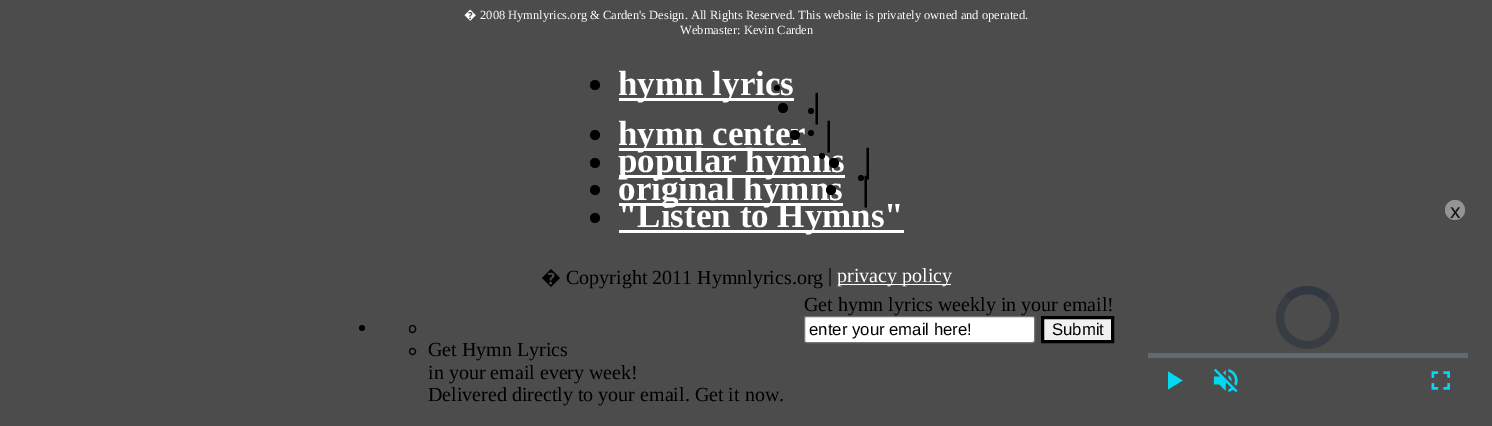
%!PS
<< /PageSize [1492 426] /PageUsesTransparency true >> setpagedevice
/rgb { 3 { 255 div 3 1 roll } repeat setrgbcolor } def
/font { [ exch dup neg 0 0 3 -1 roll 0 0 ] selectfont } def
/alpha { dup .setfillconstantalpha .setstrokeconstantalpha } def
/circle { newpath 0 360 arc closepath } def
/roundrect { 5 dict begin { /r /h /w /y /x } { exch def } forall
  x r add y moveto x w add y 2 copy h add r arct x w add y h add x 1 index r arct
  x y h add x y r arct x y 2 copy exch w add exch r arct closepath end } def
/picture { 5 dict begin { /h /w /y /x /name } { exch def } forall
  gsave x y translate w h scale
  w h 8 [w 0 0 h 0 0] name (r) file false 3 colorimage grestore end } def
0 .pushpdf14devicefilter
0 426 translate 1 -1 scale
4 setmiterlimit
76 76 76 rgb
0 0 1492 426 rectfill
0 0 0 rgb
595 85 5 circle fill
255 255 255 rgb
619 98 175 3 rectfill
0 0 0 rgb
811 111 3 circle fill
783 108 5 circle fill
595 135 5 circle fill
255 255 255 rgb
619 148 187 3 rectfill
0 0 0 rgb
811 133 3 circle fill
595 163 5 circle fill
255 255 255 rgb
619 175 226 3 rectfill
0 0 0 rgb
595 190 5 circle fill
255 255 255 rgb
619 203 224 3 rectfill
0 0 0 rgb
861 178 3 circle fill
595 218 5 circle fill
255 255 255 rgb
619 230 285 3 rectfill
838 284 113 1 rectfill
804.5 316.5 230 26 2 roundrect gsave fill grestore
118 118 118 rgb
stroke
240 240 240 rgb
1042.5 317.5 moveto 1112.5 317.5 lineto 1112.5 341.5 lineto 1042.5 341.5 lineto closepath gsave fill grestore
0 0 0 rgb
3 setlinewidth
stroke
362 328 3 circle fill
1 setlinewidth
409.5 325.5 6 7 3 roundrect stroke
412.5 351.5 3 circle stroke
148 148 148 rgb
1455 210 10 circle fill
56 61 68 rgb
8 setlinewidth
1307.5 317.5 27.5 circle stroke
0.7 alpha
48 55 65 rgb
7.5 setlinewidth
1288 298 moveto 1298.5 287.5 1316.5 287.5 1327 298 curveto stroke
1288 298 moveto 1298.5 287.5 1316.5 287.5 1327 298 curveto stroke
1 alpha
96 105 118 rgb
1148 353 320 5 rectfill
3 216 243 rgb
1168 371.5 moveto 1168 389.5 lineto 1182.5 380.5 lineto closepath fill
(img/1.rgb) 1213 368 25 25 picture
(img/2.rgb) 1431 371 19 19 picture
/NotoSans-Regular 12.5 font
255 255 255 rgb
464 19 moveto (�) show
/LiberationSerif-Regular 12.5 font
480 19 moveto (2008 Hymnlyrics.org & Carden's Design. All Rights Reserved. This website is privately owned and operated.) show
680 34 moveto (Webmaster: Kevin Carden) show
/LiberationSerif-Bold 35 font
618 95 moveto (hymn lyrics) show
0 0 0 rgb
777 88 3 circle fill
813 117 moveto (|) show
255 255 255 rgb
618 145 moveto (hymn center) show
0 0 0 rgb
795 135 5 circle fill
825 145 moveto (|) show
255 255 255 rgb
618 172 moveto (popular hymns) show
0 0 0 rgb
834 163 5 circle fill
864 172 moveto (|) show
822 156 3 circle fill
255 255 255 rgb
618 200 moveto (original hymns) show
0 0 0 rgb
831 190 5 circle fill
862 200 moveto (|) show
255 255 255 rgb
618 227 moveto ("Listen to Hymns") show
/NotoSans-Regular 20 font
0 0 0 rgb
541 284 moveto (�) show
/LiberationSerif-Regular 20 font
566 284 moveto (Copyright 2011 Hymnlyrics.org) show
828 282 moveto (|) show
255 255 255 rgb
837 282 moveto (privacy policy) show
0 0 0 rgb
804 311 moveto (Get hymn lyrics weekly in your email!) show
/LiberationSans-Regular 16.75 font
809 335 moveto (enter your email here!) show
1052 335 moveto (Submit) show
/LiberationSerif-Regular 20 font
[
  [(Get Hymn Lyrics) 428 356]
  [(in your email every week!) 428 379]
  [(Delivered directly to your email. Get it now.) 428 401]
] { aload pop moveto show } forall
/NotoSans-Regular 20 font
15 15 15 rgb
1450 218 moveto (x) show
.poppdf14devicefilter showpage
